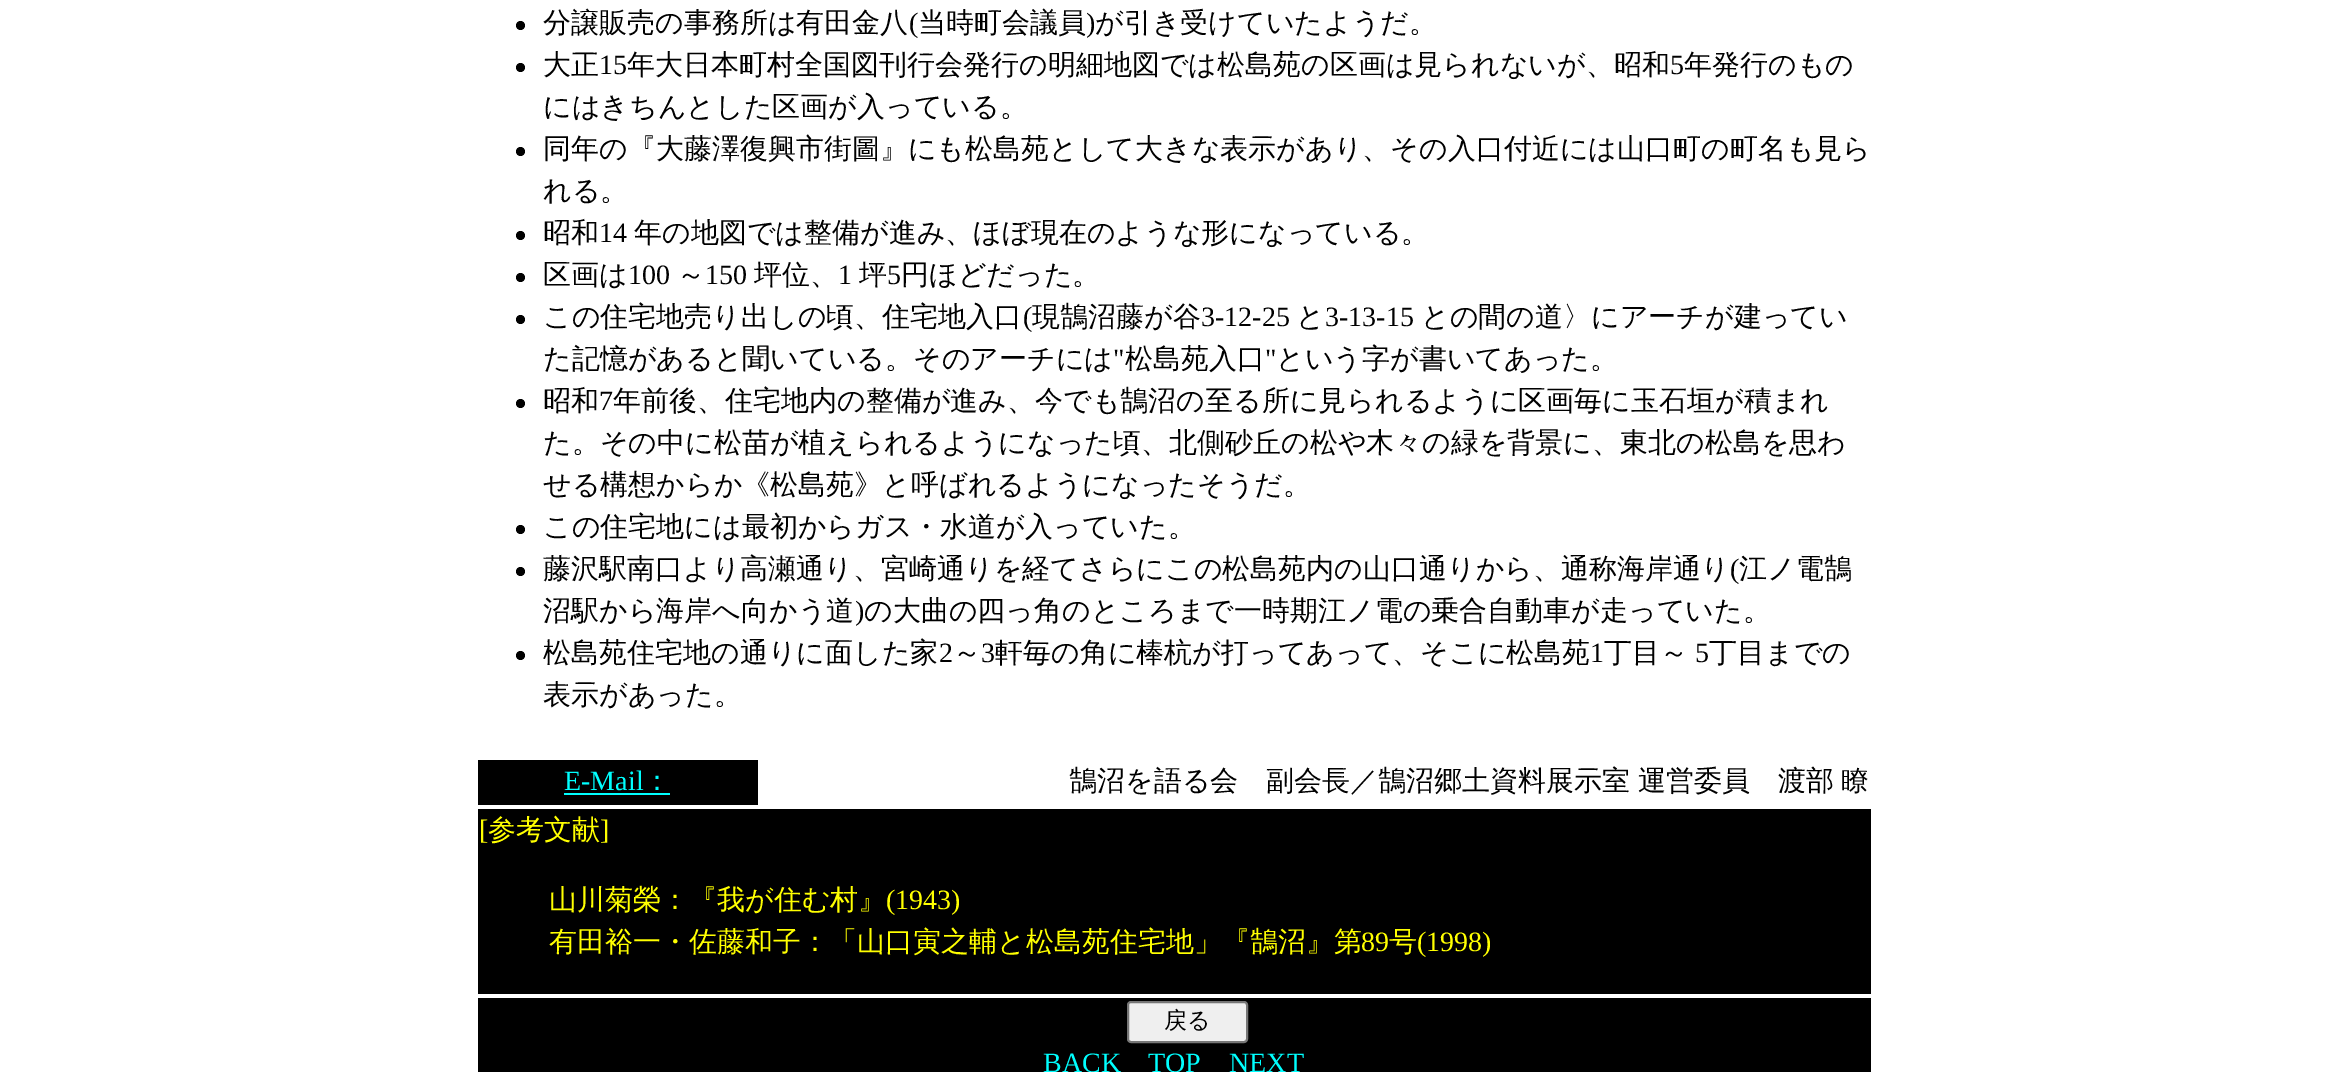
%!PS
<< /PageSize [2346 1072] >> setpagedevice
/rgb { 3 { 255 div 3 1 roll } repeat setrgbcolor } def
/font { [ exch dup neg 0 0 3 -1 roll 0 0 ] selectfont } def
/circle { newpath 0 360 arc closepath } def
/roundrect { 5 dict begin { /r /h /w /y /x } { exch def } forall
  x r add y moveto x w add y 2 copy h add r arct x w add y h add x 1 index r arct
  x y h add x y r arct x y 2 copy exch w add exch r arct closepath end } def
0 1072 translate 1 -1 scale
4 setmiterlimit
255 255 255 rgb
0 0 2346 1072 rectfill
0 0 0 rgb
520.5 25.5 4.5 circle fill
520.5 67.5 4.5 circle fill
520.5 151.5 4.5 circle fill
520.5 235.5 4.5 circle fill
520.5 277.5 4.5 circle fill
520.5 319.5 4.5 circle fill
520.5 403.5 4.5 circle fill
520.5 529.5 4.5 circle fill
520.5 571.5 4.5 circle fill
520.5 655.5 4.5 circle fill
[
  [478 760 280 45 0 0 0]
  [564 793 106 2 0 255 255]
  [478 809 1393 185 0 0 0]
  [478 998 1393 74 0 0 0]
] { aload pop rgb rectfill } forall
239 239 239 rgb
1128 1002 119 40 3 roundrect gsave fill grestore
118 118 118 rgb
2 setlinewidth
stroke
/WenQuanYiZenHei-Medium 28 font
0 0 0 rgb
543 32 moveto (分譲販売の事務所は有田金八) show
/LiberationSerif-Regular 28 font
909 32 moveto (\() show
/WenQuanYiZenHei-Medium 28 font
918 32 moveto (当時町会議員) show
/LiberationSerif-Regular 28 font
1086 32 moveto (\)) show
/WenQuanYiZenHei-Medium 28 font
1095 32 moveto (が引き受けていたようだ。) show
543 74 moveto (大正) show
/LiberationSerif-Regular 28 font
599 74 moveto (15) show
/WenQuanYiZenHei-Medium 28 font
627 74 moveto (年大日本町村全国図刊行会発行の明細地図では松島苑の区画は見られないが、昭和) show
/LiberationSerif-Regular 28 font
1670 74 moveto (5) show
/WenQuanYiZenHei-Medium 28 font
[
  [(年発行のもの) 1684 74]
  [(にはきちんとした区画が入っている。) 543 116]
  [(同年の『大藤澤復興市街圖』にも松島苑として大きな表示があり、その入口付近には山口町の町名も見ら) 543 158]
  [(れる。) 543 200]
  [(昭和) 543 242]
] { aload pop moveto show } forall
/LiberationSerif-Regular 28 font
599 242 moveto (14) show
/WenQuanYiZenHei-Medium 28 font
634 242 moveto (年の地図では整備が進み、ほぼ現在のような形になっている。) show
543 284 moveto (区画は) show
/LiberationSerif-Regular 28 font
628 284 moveto (100) show
/WenQuanYiZenHei-Medium 28 font
677 284 moveto (～) show
/LiberationSerif-Regular 28 font
705 284 moveto (150) show
/WenQuanYiZenHei-Medium 28 font
754 284 moveto (坪位、) show
/LiberationSerif-Regular 28 font
838 284 moveto (1) show
/WenQuanYiZenHei-Medium 28 font
859 284 moveto (坪) show
/LiberationSerif-Regular 28 font
887 284 moveto (5) show
/WenQuanYiZenHei-Medium 28 font
901 284 moveto (円ほどだった。) show
543 326 moveto (この住宅地売り出しの頃、住宅地入口) show
/LiberationSerif-Regular 28 font
1023 326 moveto (\() show
/WenQuanYiZenHei-Medium 28 font
1032 326 moveto (現鵠沼藤が谷) show
/LiberationSerif-Regular 28 font
1201 326 moveto (3-12-25) show
/WenQuanYiZenHei-Medium 28 font
1296 326 moveto (と) show
/LiberationSerif-Regular 28 font
1325 326 moveto (3-13-15) show
/WenQuanYiZenHei-Medium 28 font
1421 326 moveto (との間の道〉にアーチが建ってい) show
543 368 moveto (た記憶があると聞いている。そのアーチには) show
/LiberationSerif-Regular 28 font
1113 368 moveto (") show
/WenQuanYiZenHei-Medium 28 font
1125 368 moveto (松島苑入口) show
/LiberationSerif-Regular 28 font
1265 368 moveto (") show
/WenQuanYiZenHei-Medium 28 font
1276 368 moveto (という字が書いてあった。) show
543 410 moveto (昭和) show
/LiberationSerif-Regular 28 font
599 410 moveto (7) show
/WenQuanYiZenHei-Medium 28 font
[
  [(年前後、住宅地内の整備が進み、今でも鵠沼の至る所に見られるように区画毎に玉石垣が積まれ) 613 410]
  [(た。その中に松苗が植えられるようになった頃、北側砂丘の松や木々の緑を背景に、東北の松島を思わ) 543 452]
  [(せる構想からか《松島苑》と呼ばれるようになったそうだ。) 543 494]
  [(この住宅地には最初からガス・水道が入っていた。) 543 536]
  [(藤沢駅南口より高瀬通り、宮崎通りを経てさらにこの松島苑内の山口通りから、通称海岸通り) 543 578]
] { aload pop moveto show } forall
/LiberationSerif-Regular 28 font
1730 578 moveto (\() show
/WenQuanYiZenHei-Medium 28 font
1739 578 moveto (江ノ電鵠) show
543 620 moveto (沼駅から海岸へ向かう道) show
/LiberationSerif-Regular 28 font
855 620 moveto (\)) show
/WenQuanYiZenHei-Medium 28 font
864 620 moveto (の大曲の四っ角のところまで一時期江ノ電の乗合自動車が走っていた。) show
543 662 moveto (松島苑住宅地の通りに面した家) show
/LiberationSerif-Regular 28 font
939 662 moveto (2) show
/WenQuanYiZenHei-Medium 28 font
953 662 moveto (～) show
/LiberationSerif-Regular 28 font
981 662 moveto (3) show
/WenQuanYiZenHei-Medium 28 font
995 662 moveto (軒毎の角に棒杭が打ってあって、そこに松島苑) show
/LiberationSerif-Regular 28 font
1590 662 moveto (1) show
/WenQuanYiZenHei-Medium 28 font
1604 662 moveto (丁目～) show
/LiberationSerif-Regular 28 font
1695 662 moveto (5) show
/WenQuanYiZenHei-Medium 28 font
1709 662 moveto (丁目までの) show
543 704 moveto (表示があった。) show
/LiberationSerif-Regular 28 font
0 255 255 rgb
564 790 moveto (E-Mail) show
/WenQuanYiZenHei-Medium 28 font
643 790 moveto (：) show
0 0 0 rgb
1069 790 moveto -1 0 32 (鵠沼を語る会　副会長／鵠沼郷土資料展示室 運営委員　渡部 瞭) widthshow
/LiberationSerif-Regular 28 font
255 255 0 rgb
479 839 moveto ([) show
/WenQuanYiZenHei-Medium 28 font
488 839 moveto (参考文献) show
/LiberationSerif-Regular 28 font
600 839 moveto (]) show
/WenQuanYiZenHei-Medium 28 font
549 909 moveto (山川菊榮：『我が住む村』) show
/LiberationSerif-Regular 28 font
886 909 moveto (\(1943\)) show
/WenQuanYiZenHei-Medium 28 font
549 951 moveto (有田裕一・佐藤和子：「山口寅之輔と松島苑住宅地」『鵠沼』第) show
/LiberationSerif-Regular 28 font
1361 951 moveto (89) show
/WenQuanYiZenHei-Medium 28 font
1389 951 moveto (号) show
/LiberationSerif-Regular 28 font
1417 951 moveto (\(1998\)) show
/WenQuanYiZenHei-Medium 23 font
0 0 0 rgb
1164 1028 moveto (戻る) show
/LiberationSerif-Regular 28 font
0 255 255 rgb
[
  [(BACK) 1043 1072]
  [(TOP) 1148 1072]
  [(NEXT) 1229 1072]
] { aload pop moveto show } forall
showpage
